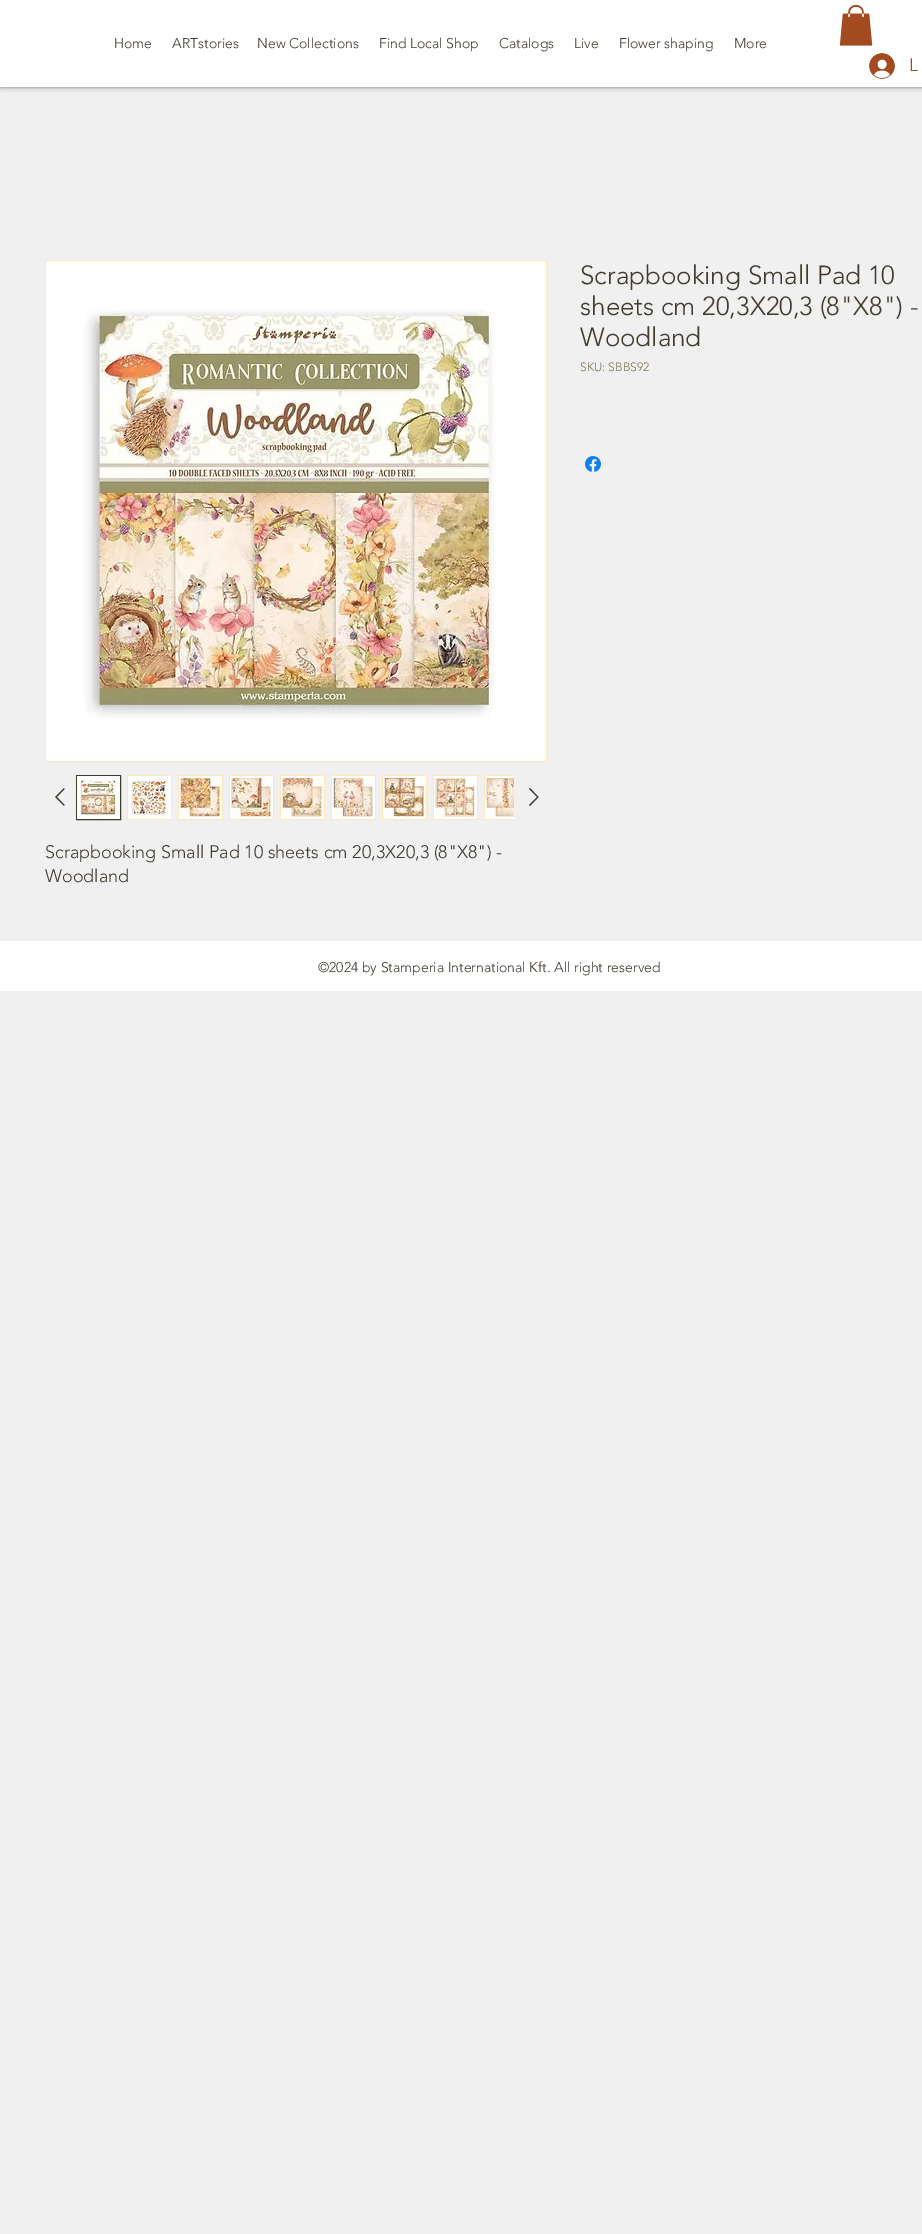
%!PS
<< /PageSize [922 2234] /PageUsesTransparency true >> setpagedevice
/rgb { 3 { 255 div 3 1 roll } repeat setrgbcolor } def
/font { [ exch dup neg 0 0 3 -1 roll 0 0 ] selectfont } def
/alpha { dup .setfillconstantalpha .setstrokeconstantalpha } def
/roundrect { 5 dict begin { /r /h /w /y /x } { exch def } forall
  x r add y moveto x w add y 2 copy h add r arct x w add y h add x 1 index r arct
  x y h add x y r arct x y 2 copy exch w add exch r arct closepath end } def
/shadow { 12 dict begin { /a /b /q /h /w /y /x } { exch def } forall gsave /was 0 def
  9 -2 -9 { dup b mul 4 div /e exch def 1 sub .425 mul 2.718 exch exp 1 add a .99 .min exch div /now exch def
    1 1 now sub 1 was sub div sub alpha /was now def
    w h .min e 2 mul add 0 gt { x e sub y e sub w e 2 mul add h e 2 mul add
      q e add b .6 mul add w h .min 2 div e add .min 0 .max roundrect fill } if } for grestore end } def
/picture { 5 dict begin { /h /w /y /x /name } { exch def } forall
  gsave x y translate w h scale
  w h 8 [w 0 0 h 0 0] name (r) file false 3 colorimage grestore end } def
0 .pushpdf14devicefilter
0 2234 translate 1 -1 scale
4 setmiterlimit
240 240 240 rgb
0 0 922 2234 rectfill
0 0 0 rgb
0 0 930 87 0 2.5 0.5 shadow
255 255 255 rgb
0 0 922 87 rectfill
(img/1.rgb) 839 5 34 41 picture
(img/2.rgb) 869 53 26 26 picture
(img/3.rgb) 585 456 16 16 picture
255 231 186 rgb
45.5 260.5 501 501 rectstroke
(img/4.rgb) 46 261 500 500 picture
64 58 47 rgb
64 788 moveto 64.5 789 lineto 57 797 lineto 64.5 805 lineto 64 806 lineto 55 797 lineto closepath eofill
76.5 775.5 44 44 rectstroke
(img/5.rgb) 77 776 43 43 picture
255 231 186 rgb
127 775 45 45 rectfill
(img/6.rgb) 128 776 43 43 picture
178 775 45 45 rectfill
(img/7.rgb) 179 776 43 43 picture
229 775 45 45 rectfill
(img/8.rgb) 230 776 43 43 picture
280 775 45 45 rectfill
(img/9.rgb) 281 776 43 43 picture
331 775 45 45 rectfill
(img/10.rgb) 332 776 43 43 picture
382 775 45 45 rectfill
(img/11.rgb) 383 776 43 43 picture
433 775 45 45 rectfill
(img/12.rgb) 434 776 43 43 picture
484 775 30 45 rectfill
(img/13.rgb) 485 776 29 43 picture
64 58 47 rgb
530 788 moveto 538.5 797 lineto 530 806 lineto 529 805 lineto 537 797 lineto 529 789 lineto closepath eofill
255 255 255 rgb
0 941 922 50 rectfill
/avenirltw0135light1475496-Light 14 font
64 58 47 rgb
[
  [(Home) 114 48]
  [(ARTstories) 172 48]
  [(New Collections) 257 48]
  [(Find Local Shop) 379 48]
  [(Catalogs) 499 48]
  [(Live) 574 48]
  [(Flower shaping) 619 48]
  [(More) 734 48]
] { aload pop moveto show } forall
/avenirltw0135light1475496-Light 18 font
163 74 33 rgb
909 71 moveto (L) show
/avenirltw0135light1475496-Light 26 font
64 58 47 rgb
[
  [(Scrapbooking Small Pad 10) 580 284]
  [(sheets cm 20,3X20,3 \(8"X8"\) -) 580 315]
  [(Woodland) 580 346]
] { aload pop moveto show } forall
/avenirltw0135light1475496-Light 12 font
128 116 93 rgb
580 371 moveto (SKU: SBBS92) show
/avenirltw0135light1475496-Light 18 font
64 58 47 rgb
45 858 moveto (Scrapbooking Small Pad 10 sheets cm 20,3X20,3 \(8"X8"\) -) show
45 882 moveto (Woodland) show
/avenirltw0135light1475496-Light 14 font
318 972 moveto (©2024 by Stamperia International Kft. All right reserved) show
.poppdf14devicefilter showpage
